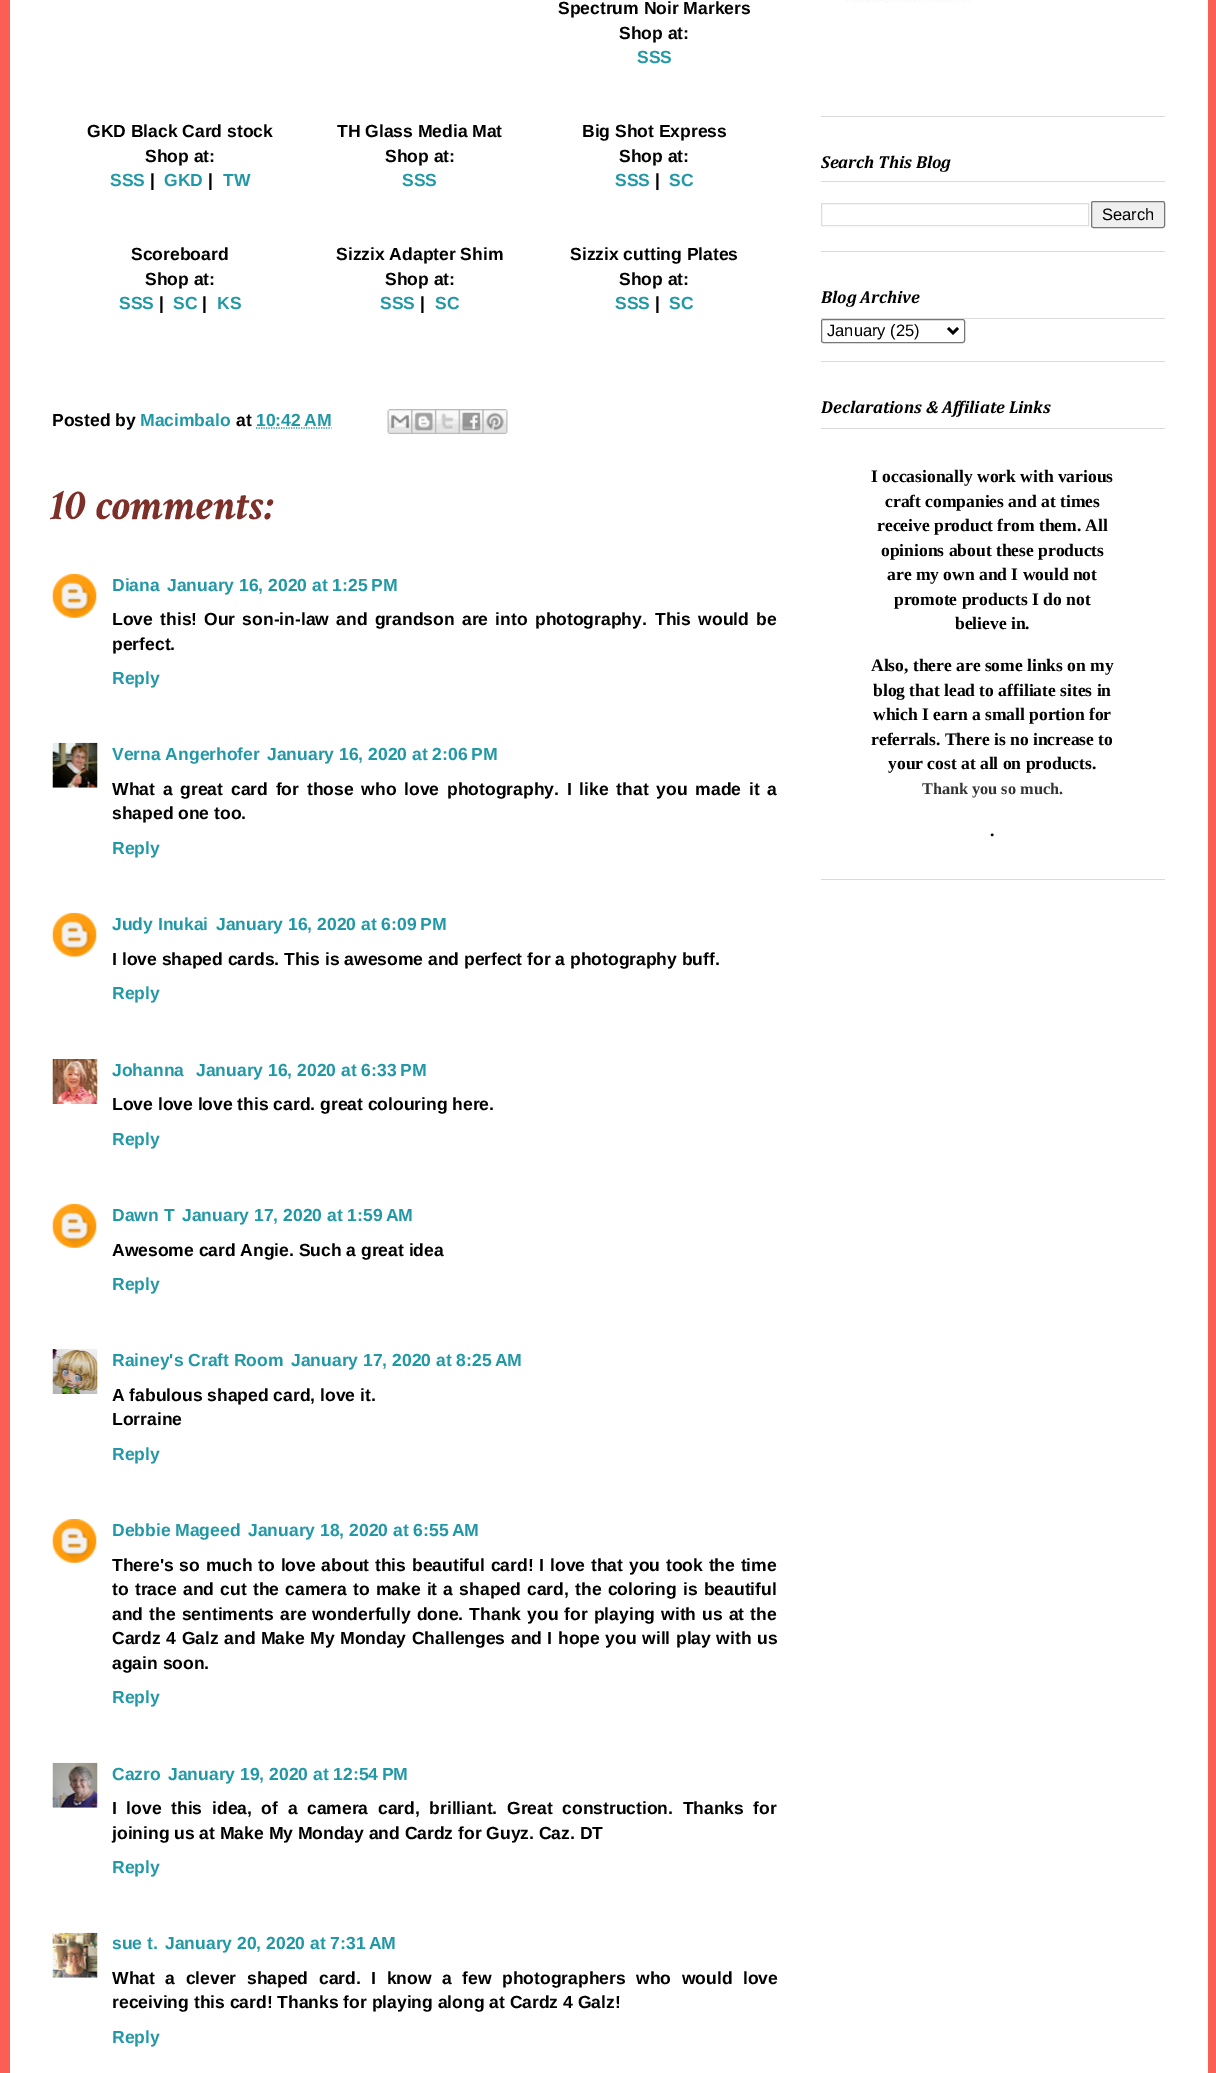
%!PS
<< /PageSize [1216 2073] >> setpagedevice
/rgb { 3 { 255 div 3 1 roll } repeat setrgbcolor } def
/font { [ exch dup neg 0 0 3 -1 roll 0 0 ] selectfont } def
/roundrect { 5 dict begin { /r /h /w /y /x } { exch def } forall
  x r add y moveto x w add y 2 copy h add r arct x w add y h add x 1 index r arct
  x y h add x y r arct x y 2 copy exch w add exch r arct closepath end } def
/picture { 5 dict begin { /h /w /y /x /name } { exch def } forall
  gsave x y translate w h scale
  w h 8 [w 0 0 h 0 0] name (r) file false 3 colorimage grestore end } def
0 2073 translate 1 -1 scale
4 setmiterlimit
251 94 83 rgb
0 0 1216 2073 rectfill
255 255 255 rgb
10 0 1198 2073 rectfill
33 152 166 rgb
1.2 setlinewidth
[1.25 1.25] 0 setdash
256 428 moveto 331.5 428 lineto stroke
(img/1.rgb) 387 409 25 25 picture
(img/2.rgb) 411 409 24 25 picture
(img/3.rgb) 435 409 24 25 picture
(img/4.rgb) 458 409 25 25 picture
(img/5.rgb) 482 409 26 25 picture
(img/6.rgb) 52 574 45 44 picture
(img/7.rgb) 52 742 46 46 picture
(img/8.rgb) 52 912 45 45 picture
(img/9.rgb) 52 1059 46 45 picture
(img/6.rgb) 52 1204 45 44 picture
(img/10.rgb) 52 1349 46 45 picture
(img/11.rgb) 52 1519 45 44 picture
(img/12.rgb) 52 1762 46 46 picture
(img/13.rgb) 52 1932 46 46 picture
219 219 219 rgb
821 116 344 1 rectfill
(img/14.rgb) 846 0 125 3 picture
821 251 344 1 rectfill
821 181 344 1 rectfill
221 221 221 rgb
1 setlinewidth
[] 0 setdash
821.5 203.5 267 22 rectstroke
239 239 239 rgb
1091.5 201.5 73 26 2 roundrect gsave fill grestore
118 118 118 rgb
stroke
219 219 219 rgb
821 361 344 1 rectfill
821 318 344 1 rectfill
118 118 118 rgb
821.5 319.5 143 23 2 roundrect stroke
0 0 0 rgb
2.5 setlinewidth
948 328 moveto 953 333 lineto 958 328 lineto stroke
219 219 219 rgb
821 879 344 1 rectfill
821 428 344 1 rectfill
/LiberationSans-Bold 17.5 font
0 0 0 rgb
558 14 moveto (Spectrum Noir Markers) show
619 39 moveto (Shop at:) show
33 152 166 rgb
637 63 moveto (SSS) show
0 0 0 rgb
87 137 moveto (GKD Black Card stock) show
145 162 moveto (Shop at:) show
33 152 166 rgb
110 186 moveto (SSS) show
0 0 0 rgb
150 186 moveto (|) show
33 152 166 rgb
164 186 moveto (GKD) show
0 0 0 rgb
208 186 moveto (|) show
33 152 166 rgb
223 186 moveto (TW) show
0 0 0 rgb
337 137 moveto (TH Glass Media Mat) show
385 162 moveto (Shop at:) show
33 152 166 rgb
402 186 moveto (SSS) show
0 0 0 rgb
582 137 moveto (Big Shot Express) show
619 162 moveto (Shop at:) show
33 152 166 rgb
615 186 moveto (SSS) show
0 0 0 rgb
655 186 moveto (|) show
33 152 166 rgb
669 186 moveto (SC) show
0 0 0 rgb
131 260 moveto (Scoreboard) show
145 285 moveto (Shop at:) show
33 152 166 rgb
119 309 moveto (SSS) show
0 0 0 rgb
159 309 moveto (|) show
33 152 166 rgb
173 309 moveto (SC) show
0 0 0 rgb
202 309 moveto (|) show
33 152 166 rgb
217 309 moveto (KS) show
0 0 0 rgb
336 260 moveto (Sizzix Adapter Shim) show
385 285 moveto (Shop at:) show
33 152 166 rgb
380 309 moveto (SSS) show
0 0 0 rgb
420 309 moveto (|) show
33 152 166 rgb
435 309 moveto (SC) show
0 0 0 rgb
570 260 moveto (Sizzix cutting Plates) show
619 285 moveto (Shop at:) show
33 152 166 rgb
615 309 moveto (SSS) show
0 0 0 rgb
655 309 moveto (|) show
33 152 166 rgb
669 309 moveto (SC) show
0 0 0 rgb
52 426 moveto (Posted by) show
33 152 166 rgb
140 426 moveto (Macimbalo) show
0 0 0 rgb
236 426 moveto (at) show
33 152 166 rgb
256 426 moveto (10:42 AM) show
/CrimsonText-BoldItalic 45 font
125 47 41 rgb
52 519 moveto (10 comments:) show
/LiberationSans-Bold 17.5 font
33 152 166 rgb
112 591 moveto (Diana) show
167 591 moveto (January 16, 2020 at 1:25 PM) show
0 0 0 rgb
112 625 moveto 2.5 0 32 (Love this!) widthshow
204 625 moveto 2.5 0 32 (Our son-in-law and grandson are into photography.) widthshow
655 625 moveto 2.5 0 32 (This would be) widthshow
112 650 moveto (perfect.) show
33 152 166 rgb
[
  [(Reply) 112 684]
  [(Verna Angerhofer) 112 760]
  [(January 16, 2020 at 2:06 PM) 267 760]
] { aload pop moveto show } forall
0 0 0 rgb
112 795 moveto 3 0 32 (What a great card for those who love photography. I like that you made it a) widthshow
112 819 moveto (shaped one too.) show
33 152 166 rgb
[
  [(Reply) 112 854]
  [(Judy Inukai) 112 930]
  [(January 16, 2020 at 6:09 PM) 216 930]
] { aload pop moveto show } forall
0 0 0 rgb
112 965 moveto (I love shaped cards. This is awesome and perfect for a photography buff.) show
33 152 166 rgb
[
  [(Reply) 112 999]
  [(Johanna) 112 1076]
  [(January 16, 2020 at 6:33 PM) 196 1076]
] { aload pop moveto show } forall
0 0 0 rgb
112 1110 moveto (Love love love this card. great colouring here.) show
33 152 166 rgb
[
  [(Reply) 112 1145]
  [(Dawn T) 112 1221]
  [(January 17, 2020 at 1:59 AM) 182 1221]
] { aload pop moveto show } forall
0 0 0 rgb
112 1256 moveto (Awesome card Angie. Such a great idea) show
33 152 166 rgb
[
  [(Reply) 112 1290]
  [(Rainey's Craft Room) 112 1366]
  [(January 17, 2020 at 8:25 AM) 291 1366]
] { aload pop moveto show } forall
0 0 0 rgb
112 1401 moveto (A fabulous shaped card, love it.) show
112 1425 moveto (Lorraine) show
33 152 166 rgb
[
  [(Reply) 112 1460]
  [(Debbie Mageed) 112 1536]
  [(January 18, 2020 at 6:55 AM) 248 1536]
] { aload pop moveto show } forall
0 0 0 rgb
112 1571 moveto 1 0 32 (There's so much to love about this beautiful card! I love that you took the time) widthshow
112 1595 moveto 1.4 0 32 (to trace and cut the camera to make it a shaped card, the coloring is beautiful) widthshow
112 1620 moveto 1.25 0 32 (and the sentiments are wonderfully done. Thank you for playing with us at the) widthshow
112 1644 moveto 0.75 0 32 (Cardz 4 Galz and Make My Monday Challenges and I hope you will play with us) widthshow
112 1669 moveto (again soon.) show
33 152 166 rgb
[
  [(Reply) 112 1703]
  [(Cazro) 112 1780]
  [(January 19, 2020 at 12:54 PM) 168 1780]
] { aload pop moveto show } forall
0 0 0 rgb
112 1814 moveto 4.75 0 32 (I love this) widthshow
212 1814 moveto 4.75 0 32 (idea, of a camera card, brilliant. Great construction. Thanks for) widthshow
112 1839 moveto (joining us at Make My Monday and Cardz for Guyz. Caz. DT) show
33 152 166 rgb
[
  [(Reply) 112 1873]
  [(sue t.) 112 1949]
  [(January 20, 2020 at 7:31 AM) 165 1949]
] { aload pop moveto show } forall
0 0 0 rgb
112 1984 moveto 5.75 0 32 (What a clever shaped card. I know a few photographers who would love) widthshow
112 2008 moveto (receiving this card! Thanks for playing along at Cardz 4 Galz!) show
33 152 166 rgb
112 2043 moveto (Reply) show
/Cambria-BoldItalic 17.5 font
0 0 0 rgb
821 168 moveto (Search This Blog) show
/LiberationSans-Regular 16.5 font
1102 220 moveto (Search) show
/Cambria-BoldItalic 17.5 font
821 303 moveto (Blog Archive) show
/LiberationSans-Regular 16.5 font
827 336 moveto (January \(25\)) show
/Cambria-BoldItalic 17.5 font
821 413 moveto (Declarations & Affiliate Links) show
/LiberationSerif-Bold 17.5 font
[
  [(I occasionally work with various) 871 482]
  [(craft companies and at times) 885 507]
  [(receive product from them. All) 877 531]
  [(opinions about these products) 881 556]
  [(are my own and I would not) 887 580]
  [(promote products I do not) 894 605]
  [(believe in.) 955 629]
  [(Also, there are some links on my) 871 671]
  [(blog that lead to affiliate sites in) 873 696]
  [(which I earn a small portion for) 873 720]
  [(referrals. There is no increase to) 871 745]
  [(your cost at all on products.) 888 769]
] { aload pop moveto show } forall
/LiberationSerif-Bold 16.25 font
51 51 51 rgb
922 794 moveto (Thank you so much.) show
/LiberationSerif-Bold 17.5 font
0 0 0 rgb
990 836 moveto (.) show
showpage
